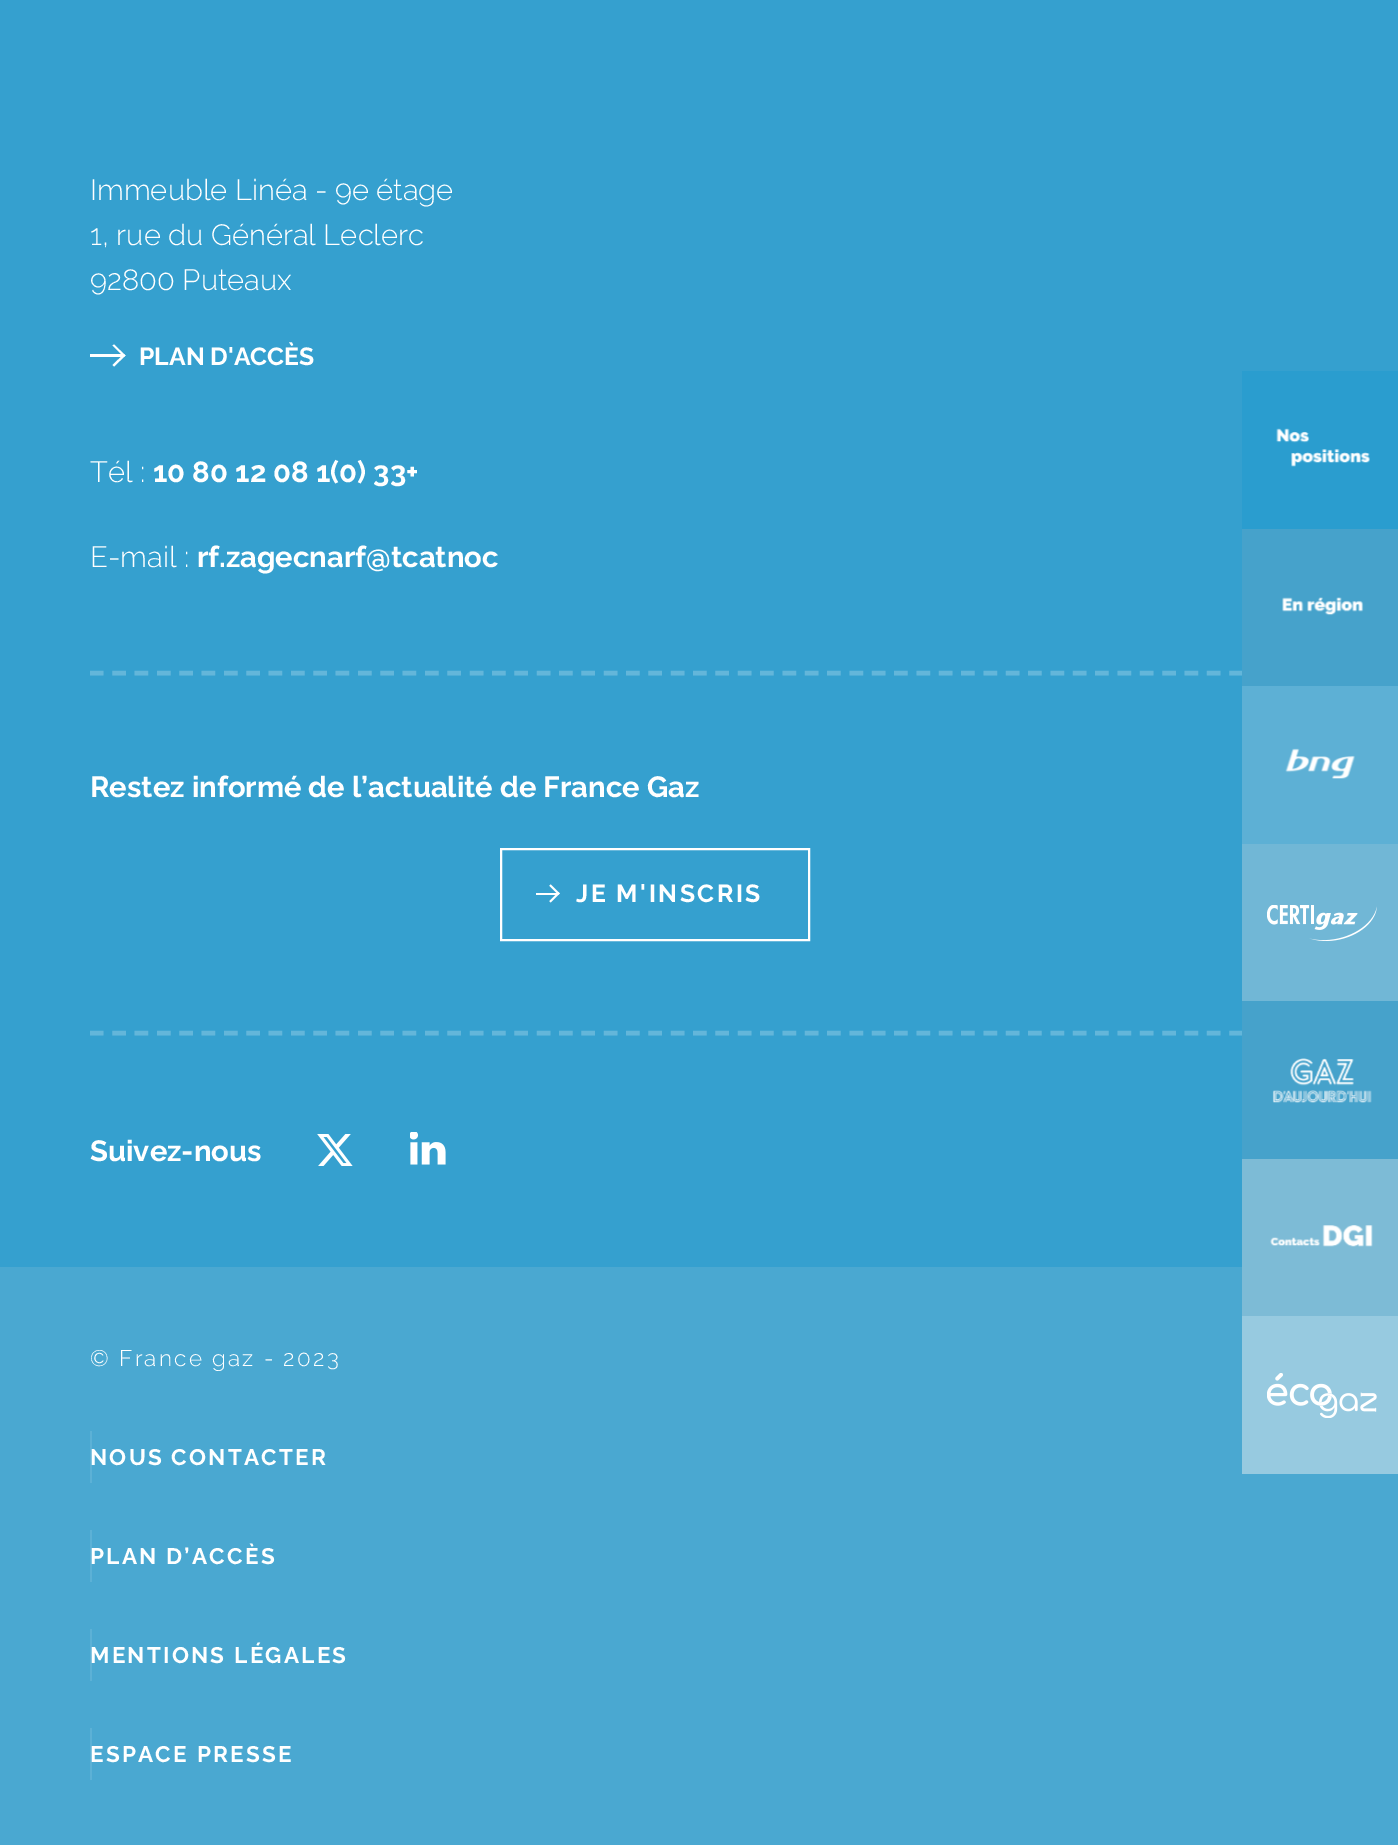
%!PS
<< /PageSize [1398 1845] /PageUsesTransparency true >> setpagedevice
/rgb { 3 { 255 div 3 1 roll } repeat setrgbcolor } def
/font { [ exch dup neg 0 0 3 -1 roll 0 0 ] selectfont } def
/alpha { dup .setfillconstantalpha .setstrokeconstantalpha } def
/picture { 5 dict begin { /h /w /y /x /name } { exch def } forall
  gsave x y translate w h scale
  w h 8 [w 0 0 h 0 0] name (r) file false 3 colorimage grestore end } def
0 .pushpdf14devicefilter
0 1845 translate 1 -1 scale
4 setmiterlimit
53 160 207 rgb
0 0 1398 1845 rectfill
99 182 218 rgb
4.5 setlinewidth
[13.5 8.84] 0 setdash
90 673 moveto 1309.5 673 lineto stroke
255 255 255 rgb
114 366.5 moveto 112.5 365 lineto 124 354 lineto 125.5 355.5 lineto closepath fill
125.5 355.5 moveto 124 357 lineto 112.5 345.5 lineto 114 344.5 lineto closepath fill
90 354 34 3 rectfill
99 182 218 rgb
90 1033 moveto 1309.5 1033 lineto stroke
255 255 255 rgb
2 setlinewidth
[] 0 setdash
501 849 308 91 rectstroke
(img/1.rgb) 536 884 24 19 picture
(img/2.rgb) 317 1134 36 32 picture
(img/3.rgb) 410 1132 36 33 picture
[
  [0 1267 1398 578 74 168 209]
] { aload pop rgb rectfill } forall
0.1 alpha
[
  [90 1431 2 52 255 255 255]
  [90 1530 2 52 255 255 255]
  [90 1629 2 52 255 255 255]
  [90 1728 2 52 255 255 255]
] { aload pop rgb rectfill } forall
1 alpha
[
  [1242 371 156 158 42 157 207]
] { aload pop rgb rectfill } forall
(img/4.rgb) 1276 428 94 39 picture
70 162 203 rgb
1242 529 156 157 rectfill
(img/5.rgb) 1282 597 82 19 picture
93 176 213 rgb
1242 686 156 158 rectfill
(img/6.rgb) 1285 748 70 31 picture
113 183 214 rgb
1242 844 156 157 rectfill
(img/7.rgb) 1267 905 110 36 picture
70 162 203 rgb
1242 1001 156 158 rectfill
(img/8.rgb) 1272 1058 100 45 picture
125 187 214 rgb
1242 1159 156 157 rectfill
(img/9.rgb) 1270 1225 103 22 picture
151 202 224 rgb
1242 1316 156 158 rectfill
(img/10.rgb) 1267 1373 110 45 picture
/Raleway-Light 29.25 font
255 255 255 rgb
[
  [(Immeuble Linéa - 9e étage) 90 200]
  [(1, rue du Général Leclerc) 90 245]
  [(92800 Puteaux) 90 290]
] { aload pop moveto show } forall
/Raleway-Bold 24.75 font
139 365 moveto (PLAN D'ACCÈS) show
/Raleway-Light 29.25 font
90 482 moveto (Tél :) show
/Raleway-Bold 29.25 font
153 482 moveto (10 80 12 08 1\(0\) 33+) show
/Raleway-Light 29.25 font
90 567 moveto (E-mail :) show
/Raleway-Bold 29.25 font
197 567 moveto (rf.zagecnarf@tcatnoc) show
90 797 moveto (Restez informé de l’actualité de France Gaz) show
/Raleway-Bold 24.75 font
576 902 moveto 2.5 0 (JE M'INSCRIS) ashow
/Raleway-Bold 29.25 font
90 1161 moveto (Suivez-nous) show
/Raleway-Light 22.5 font
90 1366 moveto 2.25 0 (© France gaz - 2023) ashow
/Raleway-Bold 22.5 font
90 1465 moveto 2.25 0 (NOUS CONTACTER) ashow
90 1564 moveto 2.25 0 (PLAN D’ACCÈS) ashow
90 1663 moveto 2.25 0 (MENTIONS LÉGALES) ashow
90 1762 moveto 2.25 0 (ESPACE PRESSE) ashow
.poppdf14devicefilter showpage
